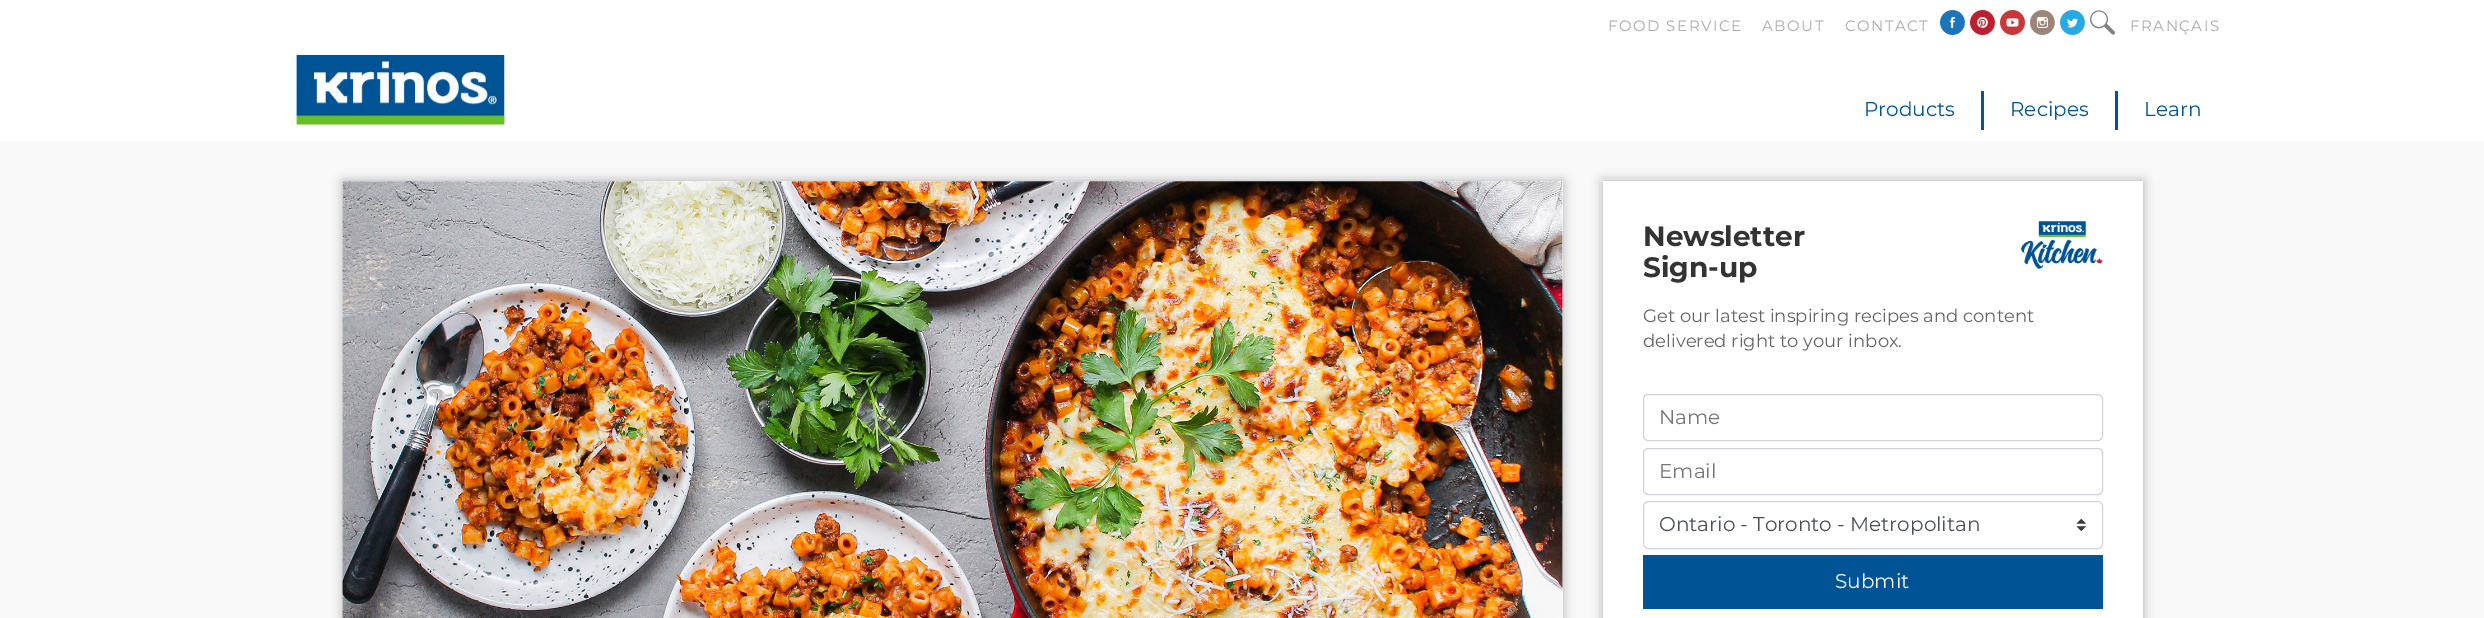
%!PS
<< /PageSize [2484 618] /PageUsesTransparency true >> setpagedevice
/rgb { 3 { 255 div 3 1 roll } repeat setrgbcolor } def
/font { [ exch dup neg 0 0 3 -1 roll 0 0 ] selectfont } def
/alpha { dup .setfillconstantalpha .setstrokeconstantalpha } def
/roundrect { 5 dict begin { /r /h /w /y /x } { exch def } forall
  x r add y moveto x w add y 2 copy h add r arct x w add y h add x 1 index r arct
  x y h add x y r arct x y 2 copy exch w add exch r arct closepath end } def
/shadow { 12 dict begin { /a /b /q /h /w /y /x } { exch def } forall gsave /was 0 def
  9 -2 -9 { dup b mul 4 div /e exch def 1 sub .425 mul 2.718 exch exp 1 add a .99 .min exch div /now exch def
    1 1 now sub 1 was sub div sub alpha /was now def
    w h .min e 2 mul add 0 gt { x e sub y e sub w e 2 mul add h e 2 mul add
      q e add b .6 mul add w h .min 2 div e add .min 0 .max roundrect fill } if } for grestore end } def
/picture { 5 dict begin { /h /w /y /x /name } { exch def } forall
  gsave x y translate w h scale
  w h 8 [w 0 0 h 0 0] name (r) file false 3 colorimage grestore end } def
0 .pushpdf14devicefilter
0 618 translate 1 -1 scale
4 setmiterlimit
249 249 249 rgb
0 0 2484 618 rectfill
255 255 255 rgb
0 0 2484 141 rectfill
(img/1.rgb) 1940 10 25 25 picture
(img/2.rgb) 1970 10 25 25 picture
(img/3.rgb) 2000 10 25 25 picture
(img/4.rgb) 2030 10 25 25 picture
(img/5.rgb) 2060 10 25 25 picture
(img/6.rgb) 2090 10 25 25 picture
(img/7.rgb) 296 55 209 70 picture
0 85 150 rgb
1981 91 3 39 rectfill
2115 91 3 39 rectfill
0 0 0 rgb
343 181 1220 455 0 6 0.3 shadow
255 255 255 rgb
343 181 1220 437 rectfill
(img/8.rgb) 342 181 1221 437 picture
0 0 0 rgb
1603 181 540 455 0 6 0.3 shadow
255 255 255 rgb
1603 181 540 437 rectfill
(img/9.rgb) 2021 221 82 48 picture
206 212 218 rgb
1643.5 394.5 459 46 4.5 roundrect stroke
1643.5 448.5 459 46 4.5 roundrect stroke
(img/10.rgb) 2076 519 10 12 picture
1643.5 501.5 459 47 4.5 roundrect stroke
0 84 150 rgb
1643 555 460 54 rectfill
/Montserrat-Regular 15 font
167 169 172 rgb
1608 31 moveto 1.5 0 (FOOD SERVICE) ashow
1762 31 moveto 1.5 0 (ABOUT) ashow
1845 31 moveto 1.5 0 (CONTACT) ashow
2130 31 moveto 1.5 0 (FRANÇAIS) ashow
/Montserrat-Regular 20 font
0 85 150 rgb
[
  [(Products) 1864 116]
  [(Recipes) 2010 116]
  [(Learn) 2144 116]
] { aload pop moveto show } forall
/Montserrat-Bold 28 font
51 51 51 rgb
1643 246 moveto (Newsletter) show
1643 277 moveto (Sign-up) show
/Montserrat-Regular 18 font
102 102 102 rgb
1643 322 moveto (Get our latest inspiring recipes and content) show
1643 347 moveto (delivered right to your inbox.) show
/Montserrat-Regular 20 font
117 117 117 rgb
1659 424 moveto (Name) show
1659 478 moveto (Email) show
73 80 87 rgb
1659 531 moveto (Ontario - Toronto - Metropolitan) show
255 255 255 rgb
1835 588 moveto (Submit) show
.poppdf14devicefilter showpage
